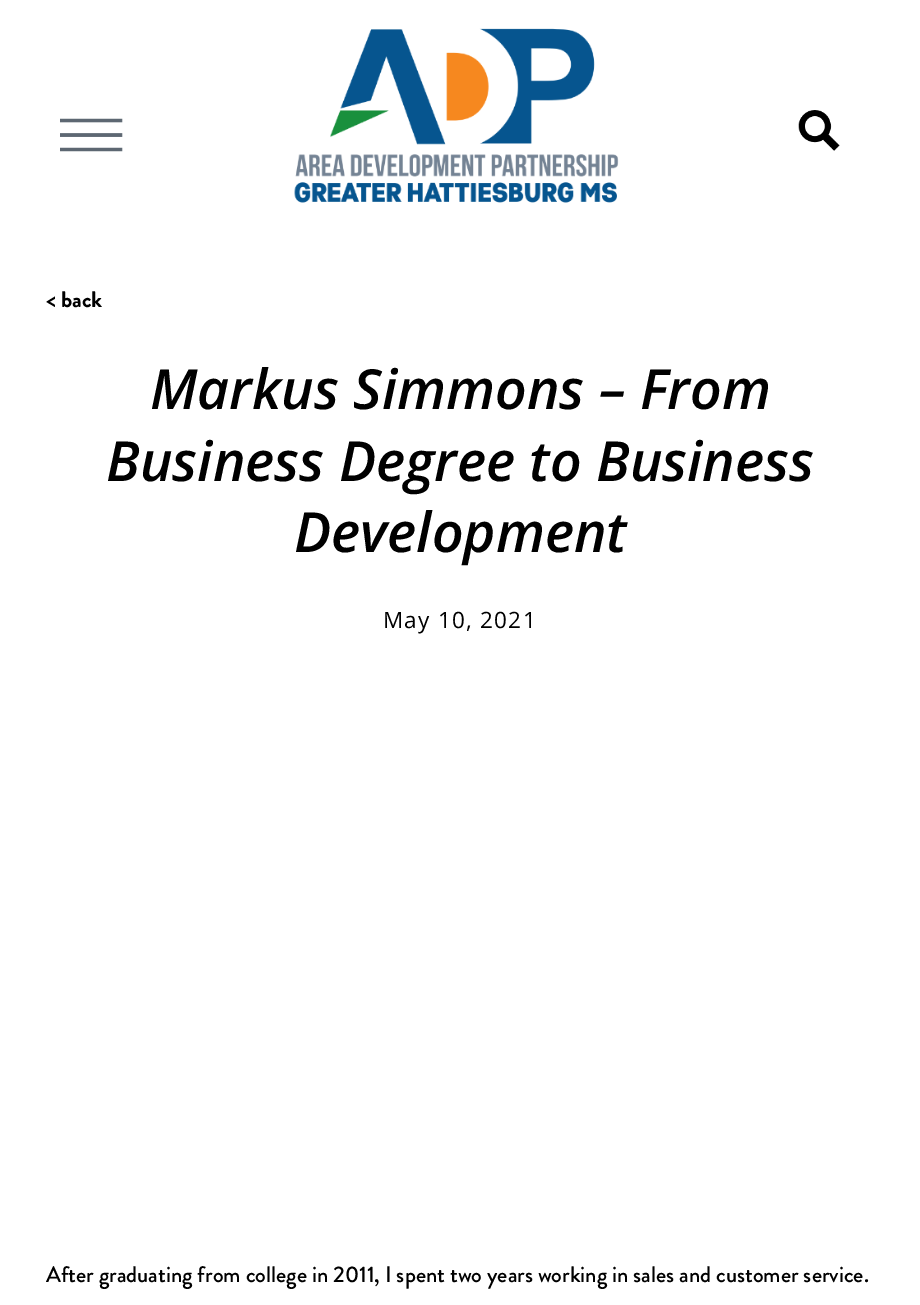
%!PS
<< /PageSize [920 1305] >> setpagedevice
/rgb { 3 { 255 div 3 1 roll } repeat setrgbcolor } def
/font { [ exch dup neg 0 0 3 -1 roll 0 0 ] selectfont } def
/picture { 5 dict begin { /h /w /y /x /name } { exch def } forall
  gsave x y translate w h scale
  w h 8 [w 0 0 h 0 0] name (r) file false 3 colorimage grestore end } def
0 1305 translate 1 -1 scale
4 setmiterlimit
255 255 255 rgb
0 0 920 1305 rectfill
(img/1.rgb) 60 118 63 34 picture
(img/2.rgb) 294 28 325 175 picture
(img/3.rgb) 798 110 42 41 picture
/BrandonGrotesque-Bold 22.5 font
0 0 0 rgb
46 307 moveto (< back) show
/OpenSans-SemiBoldItalic 55.25 font
[
  [(Markus Simmons – From) 150 409]
  [(Business Degree to Business) 106 481]
  [(Development) 294 552]
] { aload pop moveto show } forall
/OpenSans-Regular 22.5 font
383 628 moveto 1.25 0 (May 10, 2021) ashow
/BrandonGrotesque-Medium 22.5 font
46 1282 moveto (After graduating from college in 2011, I spent two years working in sales and customer service.) show
showpage
